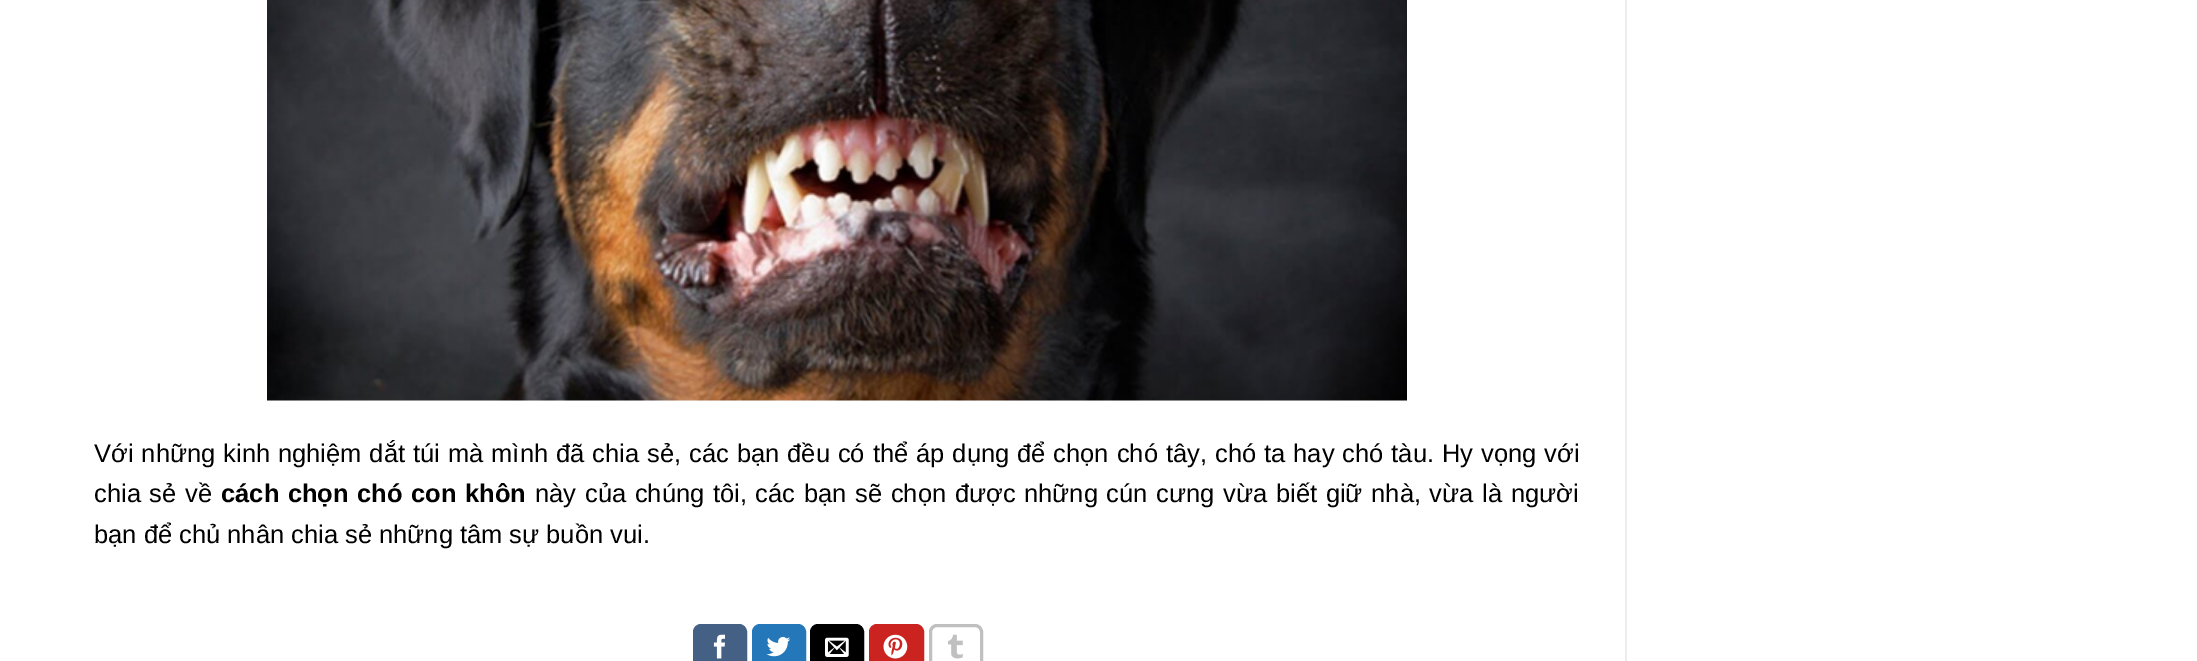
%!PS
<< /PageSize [2197 661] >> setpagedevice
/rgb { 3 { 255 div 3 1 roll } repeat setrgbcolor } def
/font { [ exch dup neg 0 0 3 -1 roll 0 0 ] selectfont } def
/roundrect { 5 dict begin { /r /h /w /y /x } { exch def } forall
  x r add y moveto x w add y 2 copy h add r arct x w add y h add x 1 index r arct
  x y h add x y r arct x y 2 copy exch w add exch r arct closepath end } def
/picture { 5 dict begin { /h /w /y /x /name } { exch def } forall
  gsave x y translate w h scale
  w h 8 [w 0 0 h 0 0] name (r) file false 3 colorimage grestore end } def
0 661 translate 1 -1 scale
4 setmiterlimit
255 255 255 rgb
0 0 2197 661 rectfill
(img/1.rgb) 267 0 1140 401 picture
68 96 132 rgb
694.5 625.5 51 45 6.5 roundrect gsave fill grestore
3 setlinewidth
stroke
(img/2.rgb) 713 634 12 25 picture
36 120 186 rgb
753.5 625.5 51 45 6.5 roundrect gsave fill grestore
stroke
(img/3.rgb) 766 637 25 20 picture
0 0 0 rgb
811.5 625.5 51 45 6.5 roundrect gsave fill grestore
stroke
(img/4.rgb) 825 637 24 20 picture
203 35 32 rgb
870.5 625.5 52 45 6.5 roundrect gsave fill grestore
stroke
(img/5.rgb) 883 634 25 25 picture
192 192 192 rgb
930.5 625.5 51 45 6.5 roundrect stroke
(img/6.rgb) 948 634 15 25 picture
236 236 236 rgb
1625 0 2 661 rectfill
/LiberationSans-Regular 25.5 font
0 0 0 rgb
94 462 moveto 0.9 0 32 (Với những kinh nghiệm dắt túi mà mình đã chia sẻ, các bạn đều có thể áp dụng để chọn chó tây, chó ta hay chó tàu. Hy vọng với) widthshow
94 502 moveto 1.5 0 32 (chia sẻ về) widthshow
/LiberationSans-Bold 25.5 font
221 502 moveto 1.5 0 32 (cách chọn chó con khôn) widthshow
/LiberationSans-Regular 25.5 font
535 502 moveto 1.6 0 32 (này của chúng tôi, các bạn sẽ chọn được những cún cưng vừa biết giữ nhà, vừa là người) widthshow
94 543 moveto (bạn để chủ nhân chia sẻ những tâm sự buồn vui.) show
showpage
